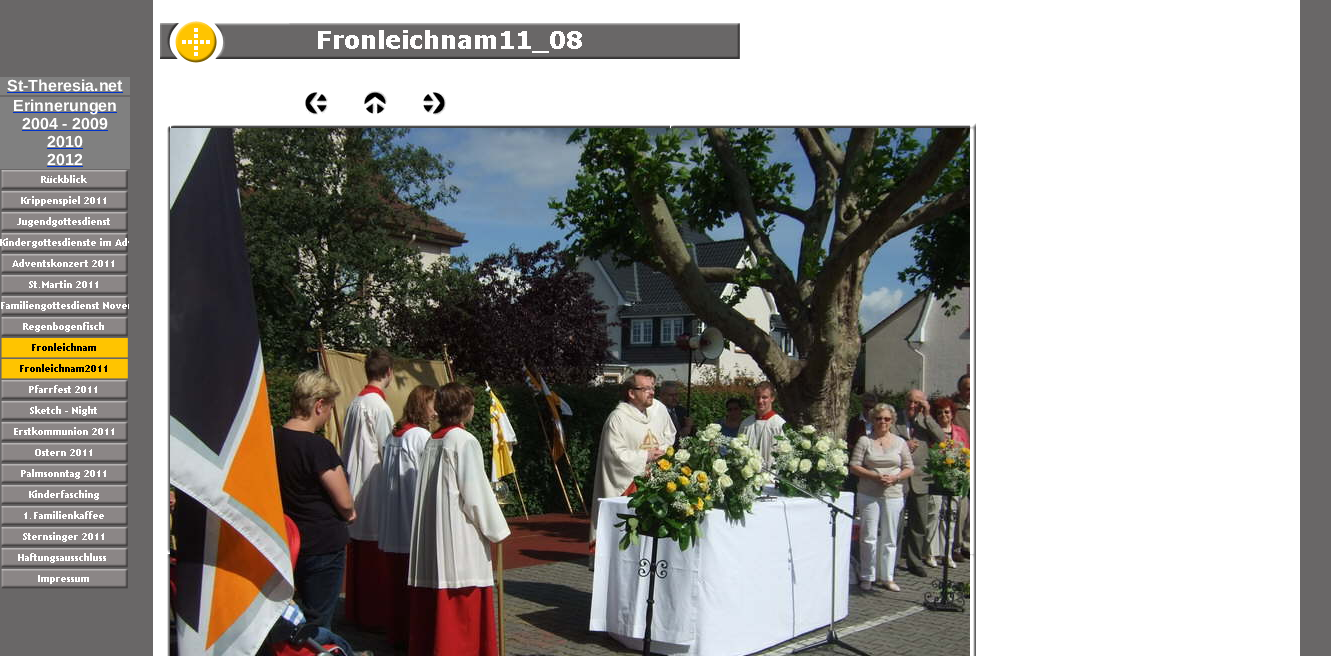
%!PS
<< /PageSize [1331 656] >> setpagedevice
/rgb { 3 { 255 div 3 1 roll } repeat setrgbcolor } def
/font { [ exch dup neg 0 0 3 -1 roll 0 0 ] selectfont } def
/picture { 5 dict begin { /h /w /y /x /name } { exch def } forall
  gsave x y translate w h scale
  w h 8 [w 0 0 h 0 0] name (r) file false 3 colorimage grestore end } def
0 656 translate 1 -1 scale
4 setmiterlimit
255 255 255 rgb
0 0 1331 656 rectfill
(img/1.rgb) 0 0 1331 656 picture
[
  [0 77 130 18 128 128 128]
  [7 92 116 1 0 51 204]
  [0 97 130 72 128 128 128]
  [13 112 104 1 0 51 204]
  [22 130 86 1 0 51 204]
  [47 148 36 1 0 51 204]
  [47 166 36 1 0 51 204]
] { aload pop rgb rectfill } forall
(img/2.rgb) 1 170 127 20 picture
(img/3.rgb) 1 191 127 20 picture
(img/4.rgb) 1 212 127 20 picture
(img/5.rgb) 0 233 129 20 picture
(img/6.rgb) 1 254 127 20 picture
(img/7.rgb) 1 275 127 20 picture
(img/8.rgb) 1 296 128 20 picture
(img/9.rgb) 1 317 127 20 picture
(img/10.rgb) 1 338 127 20 picture
(img/11.rgb) 1 359 127 20 picture
(img/12.rgb) 1 380 127 20 picture
(img/13.rgb) 1 401 127 20 picture
(img/14.rgb) 1 422 127 20 picture
(img/15.rgb) 1 443 127 20 picture
(img/16.rgb) 1 464 127 20 picture
(img/17.rgb) 1 485 127 20 picture
(img/18.rgb) 1 506 127 20 picture
(img/19.rgb) 1 527 127 20 picture
(img/20.rgb) 1 548 127 20 picture
(img/21.rgb) 1 569 127 20 picture
(img/22.rgb) 160 21 580 42 picture
(img/23.rgb) 305 92 23 23 picture
(img/24.rgb) 364 91 23 23 picture
(img/25.rgb) 423 92 23 23 picture
(img/26.rgb) 167 126 3 2 picture
(img/27.rgb) 171 125 799 3 picture
(img/28.rgb) 970 123 6 5 picture
(img/29.rgb) 167 128 3 528 picture
(img/30.rgb) 170 128 800 528 picture
(img/31.rgb) 970 128 6 528 picture
/LiberationSans-Bold 16 font
255 255 255 rgb
[
  [(St-Theresia.net) 7 91]
  [(Erinnerungen) 13 111]
  [(2004 - 2009) 22 129]
  [(2010) 47 147]
  [(2012) 47 165]
] { aload pop moveto show } forall
showpage
